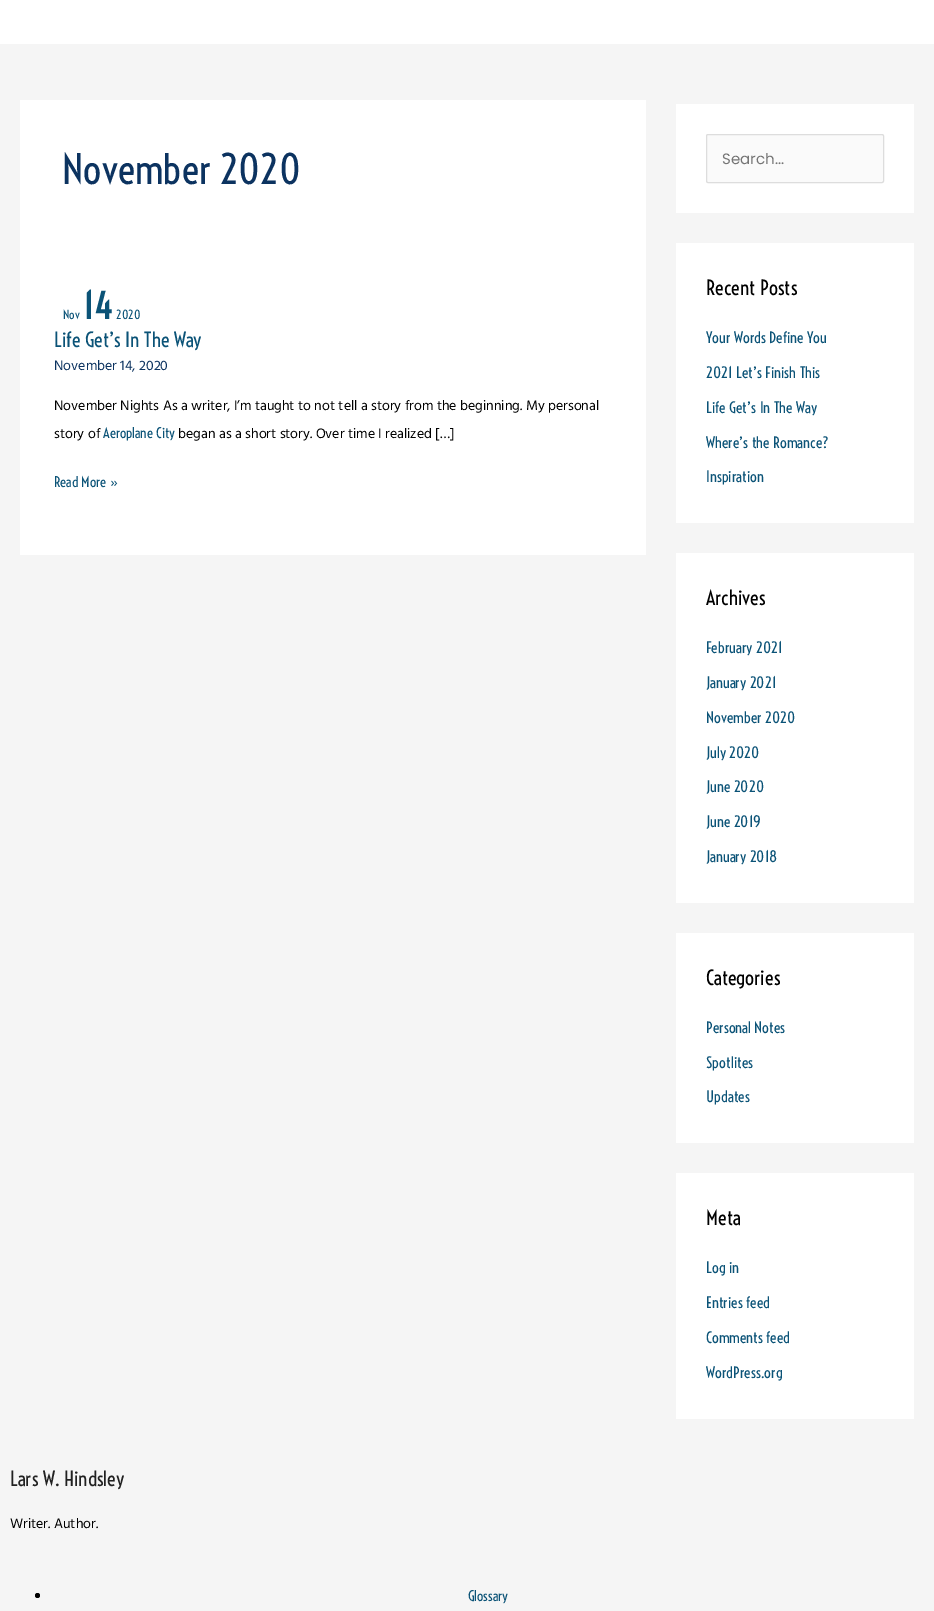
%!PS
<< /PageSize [934 1611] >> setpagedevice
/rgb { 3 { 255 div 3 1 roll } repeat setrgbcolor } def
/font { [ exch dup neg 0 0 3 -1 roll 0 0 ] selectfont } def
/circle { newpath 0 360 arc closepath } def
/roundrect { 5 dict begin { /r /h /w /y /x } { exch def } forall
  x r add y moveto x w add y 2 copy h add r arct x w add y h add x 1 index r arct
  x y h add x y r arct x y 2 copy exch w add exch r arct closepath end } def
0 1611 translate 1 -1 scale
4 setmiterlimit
245 245 245 rgb
0 0 934 1611 rectfill
[
  [0 0 934 44 255 255 255]
  [20 100 626 455 255 255 255]
  [676 104 238 109 255 255 255]
] { aload pop rgb rectfill } forall
250 250 250 rgb
706.5 134.5 177 48 1.5 roundrect gsave fill grestore
221 221 221 rgb
stroke
[
  [676 243 238 280 255 255 255]
  [676 553 238 350 255 255 255]
  [676 933 238 210 255 255 255]
  [676 1173 238 246 255 255 255]
] { aload pop rgb rectfill } forall
0 0 0 rgb
37.5 1595.5 2.5 circle fill
/Voltaire-Regular 40 font
12 51 96 rgb
62 184 moveto (November 2020) show
/Voltaire-Regular 12 font
11 83 119 rgb
63 319 moveto (Nov) show
/Voltaire-Bold 35 font
83 319 moveto (14) show
/Voltaire-Regular 12 font
116 319 moveto (2020) show
/Voltaire-Regular 20 font
54 347 moveto (Life Get’s In The Way) show
/Hind-Regular 14 font
12 51 96 rgb
54 370 moveto (November 14, 2020) show
0 0 0 rgb
54 410 moveto (November Nights As a writer, I’m taught to not tell a story from the beginning. My personal) show
54 438 moveto (story of) show
/Voltaire-Regular 14 font
11 83 119 rgb
103 438 moveto (Aeroplane City) show
/Hind-Regular 14 font
0 0 0 rgb
178 438 moveto (began as a short story. Over time I realized […]) show
/Voltaire-Regular 14 font
11 83 119 rgb
54 487 moveto (Read More ») show
/Poppins-Regular 15 font
117 117 117 rgb
722 164 moveto (Search...) show
/Voltaire-Regular 20 font
0 0 0 rgb
706 295 moveto (Recent Posts) show
/Voltaire-Regular 15 font
11 83 119 rgb
[
  [(Your Words Define You) 706 343]
  [(2021 Let’s Finish This) 706 378]
  [(Life Get’s In The Way) 706 413]
  [(Where’s the Romance?) 706 448]
  [(Inspiration) 706 482]
] { aload pop moveto show } forall
/Voltaire-Regular 20 font
0 0 0 rgb
706 605 moveto (Archives) show
/Voltaire-Regular 15 font
11 83 119 rgb
[
  [(February 2021) 706 653]
  [(January 2021) 706 688]
  [(November 2020) 706 723]
  [(July 2020) 706 758]
  [(June 2020) 706 792]
  [(June 2019) 706 827]
  [(January 2018) 706 862]
] { aload pop moveto show } forall
/Voltaire-Regular 20 font
0 0 0 rgb
706 985 moveto (Categories) show
/Voltaire-Regular 15 font
11 83 119 rgb
[
  [(Personal Notes) 706 1033]
  [(Spotlites) 706 1068]
  [(Updates) 706 1102]
] { aload pop moveto show } forall
/Voltaire-Regular 20 font
0 0 0 rgb
706 1225 moveto (Meta) show
/Voltaire-Regular 15 font
11 83 119 rgb
[
  [(Log in) 706 1273]
  [(Entries feed) 706 1308]
  [(Comments feed) 706 1343]
  [(WordPress.org) 706 1378]
] { aload pop moveto show } forall
/Voltaire-Regular 20 font
33 33 33 rgb
10 1486 moveto (Lars W. Hindsley) show
/Hind-Regular 14 font
0 0 0 rgb
10 1528 moveto (Writer. Author.) show
/Voltaire-Regular 14 font
11 83 119 rgb
468 1601 moveto (Glossary) show
showpage
